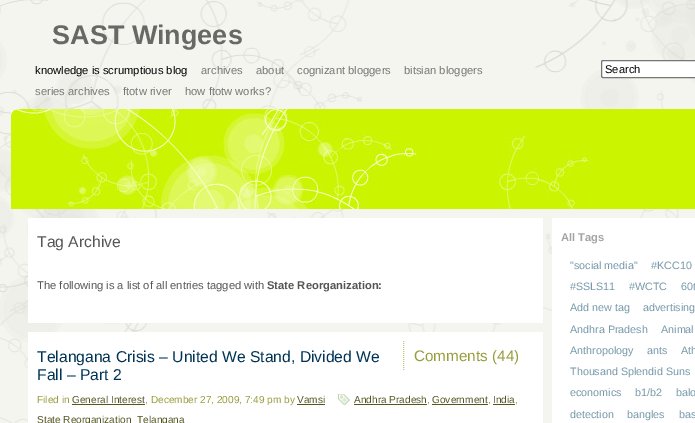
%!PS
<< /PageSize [695 423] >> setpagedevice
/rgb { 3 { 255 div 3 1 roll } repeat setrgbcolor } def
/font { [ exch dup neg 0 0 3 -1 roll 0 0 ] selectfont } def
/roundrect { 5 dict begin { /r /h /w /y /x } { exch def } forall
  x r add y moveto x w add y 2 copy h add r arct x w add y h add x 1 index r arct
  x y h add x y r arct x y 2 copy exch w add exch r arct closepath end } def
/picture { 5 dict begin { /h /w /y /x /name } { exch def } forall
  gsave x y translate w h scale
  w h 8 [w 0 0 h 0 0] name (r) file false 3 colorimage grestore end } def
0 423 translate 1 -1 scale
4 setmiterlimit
245 245 239 rgb
0 0 695 423 rectfill
(img/1.rgb) 0 0 695 423 picture
255 255 255 rgb
601.5 60.5 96 17 1.5 roundrect gsave fill grestore
118 118 118 rgb
stroke
(img/2.rgb) 11 109 684 100 picture
[
  [11 109 5 1 245 245 239]
  [11 110 3 1 245 245 239]
  [11 111 2 1 245 245 239]
  [11 112 1 2 245 245 239]
  [28 218 515 105 255 255 255]
  [28 332 515 91 255 255 255]
] { aload pop rgb rectfill } forall
194 199 109 rgb
[1 1] 0 setdash
403.5 341 moveto 403.5 370 lineto stroke
84 86 33 rgb
72 404 73 1 rectfill
297 404 28 1 rectfill
(img/3.rgb) 338 394 12 11 picture
[
  [354 404 73 1 84 86 33]
  [432 404 56 1 84 86 33]
  [493 404 22 1 84 86 33]
  [552 218 143 205 255 255 255]
] { aload pop rgb rectfill } forall
/LiberationSans-Bold 27 font
104 104 101 rgb
52 44 moveto (SAST Wingees) show
/LiberationSans-Regular 11.2 font
0 0 0 rgb
35 74 moveto (knowledge is scrumptious blog) show
118 118 116 rgb
[
  [(archives) 201 74]
  [(about) 256 74]
  [(cognizant bloggers) 297 74]
  [(bitsian bloggers) 404 74]
  [(series archives) 35 95]
  [(ftotw river) 123 95]
  [(how ftotw works?) 185 95]
] { aload pop moveto show } forall
0 0 0 rgb
605 73 moveto (Search) show
/LiberationSans-Regular 15.7 font
86 86 84 rgb
37 247 moveto (Tag Archive) show
/LiberationSans-Regular 11.2 font
37 289 moveto (The following is a list of all entries tagged with) show
/LiberationSans-Bold 11.2 font
267 289 moveto (State Reorganization:) show
/LiberationSans-Regular 15.7 font
0 51 85 rgb
37 362 moveto (Telangana Crisis – United We Stand, Divided We) show
37 380 moveto (Fall – Part 2) show
/LiberationSans-Regular 15.25 font
152 157 60 rgb
414 361 moveto (Comments \(44\)) show
/LiberationSans-Regular 10.1 font
37 403 moveto (Filed in) show
84 86 33 rgb
72 403 moveto (General Interest) show
152 157 60 rgb
145 403 moveto (, December 27, 2009, 7:49 pm by) show
84 86 33 rgb
297 403 moveto (Vamsi) show
354 403 moveto (Andhra Pradesh) show
152 157 60 rgb
427 403 moveto (,) show
84 86 33 rgb
432 403 moveto (Government) show
152 157 60 rgb
488 403 moveto (,) show
84 86 33 rgb
493 403 moveto (India) show
152 157 60 rgb
515 403 moveto (,) show
84 86 33 rgb
37 423 moveto (State Reorganization) show
137 423 moveto (Telangana) show
/LiberationSans-Bold 11.2 font
165 165 163 rgb
561 241 moveto (All Tags) show
/LiberationSans-Regular 10.75 font
119 153 170 rgb
[
  [("social media") 570 269]
  [(#KCC10) 651 269]
  [(#SSLS11) 570 290]
  [(#WCTC) 629 290]
  [(60t) 681 290]
  [(Add new tag) 570 311]
  [(advertising) 643 311]
  [(Andhra Pradesh) 570 333]
  [(Animal) 661 333]
  [(Anthropology) 570 354]
  [(ants) 647 354]
  [(Ath) 681 354]
  [(Thousand Splendid Suns) 570 375]
  [(economics) 570 396]
  [(b1/b2) 635 396]
  [(balo) 676 396]
  [(detection) 570 418]
  [(bangles) 627 418]
  [(bas) 679 418]
] { aload pop moveto show } forall
showpage
